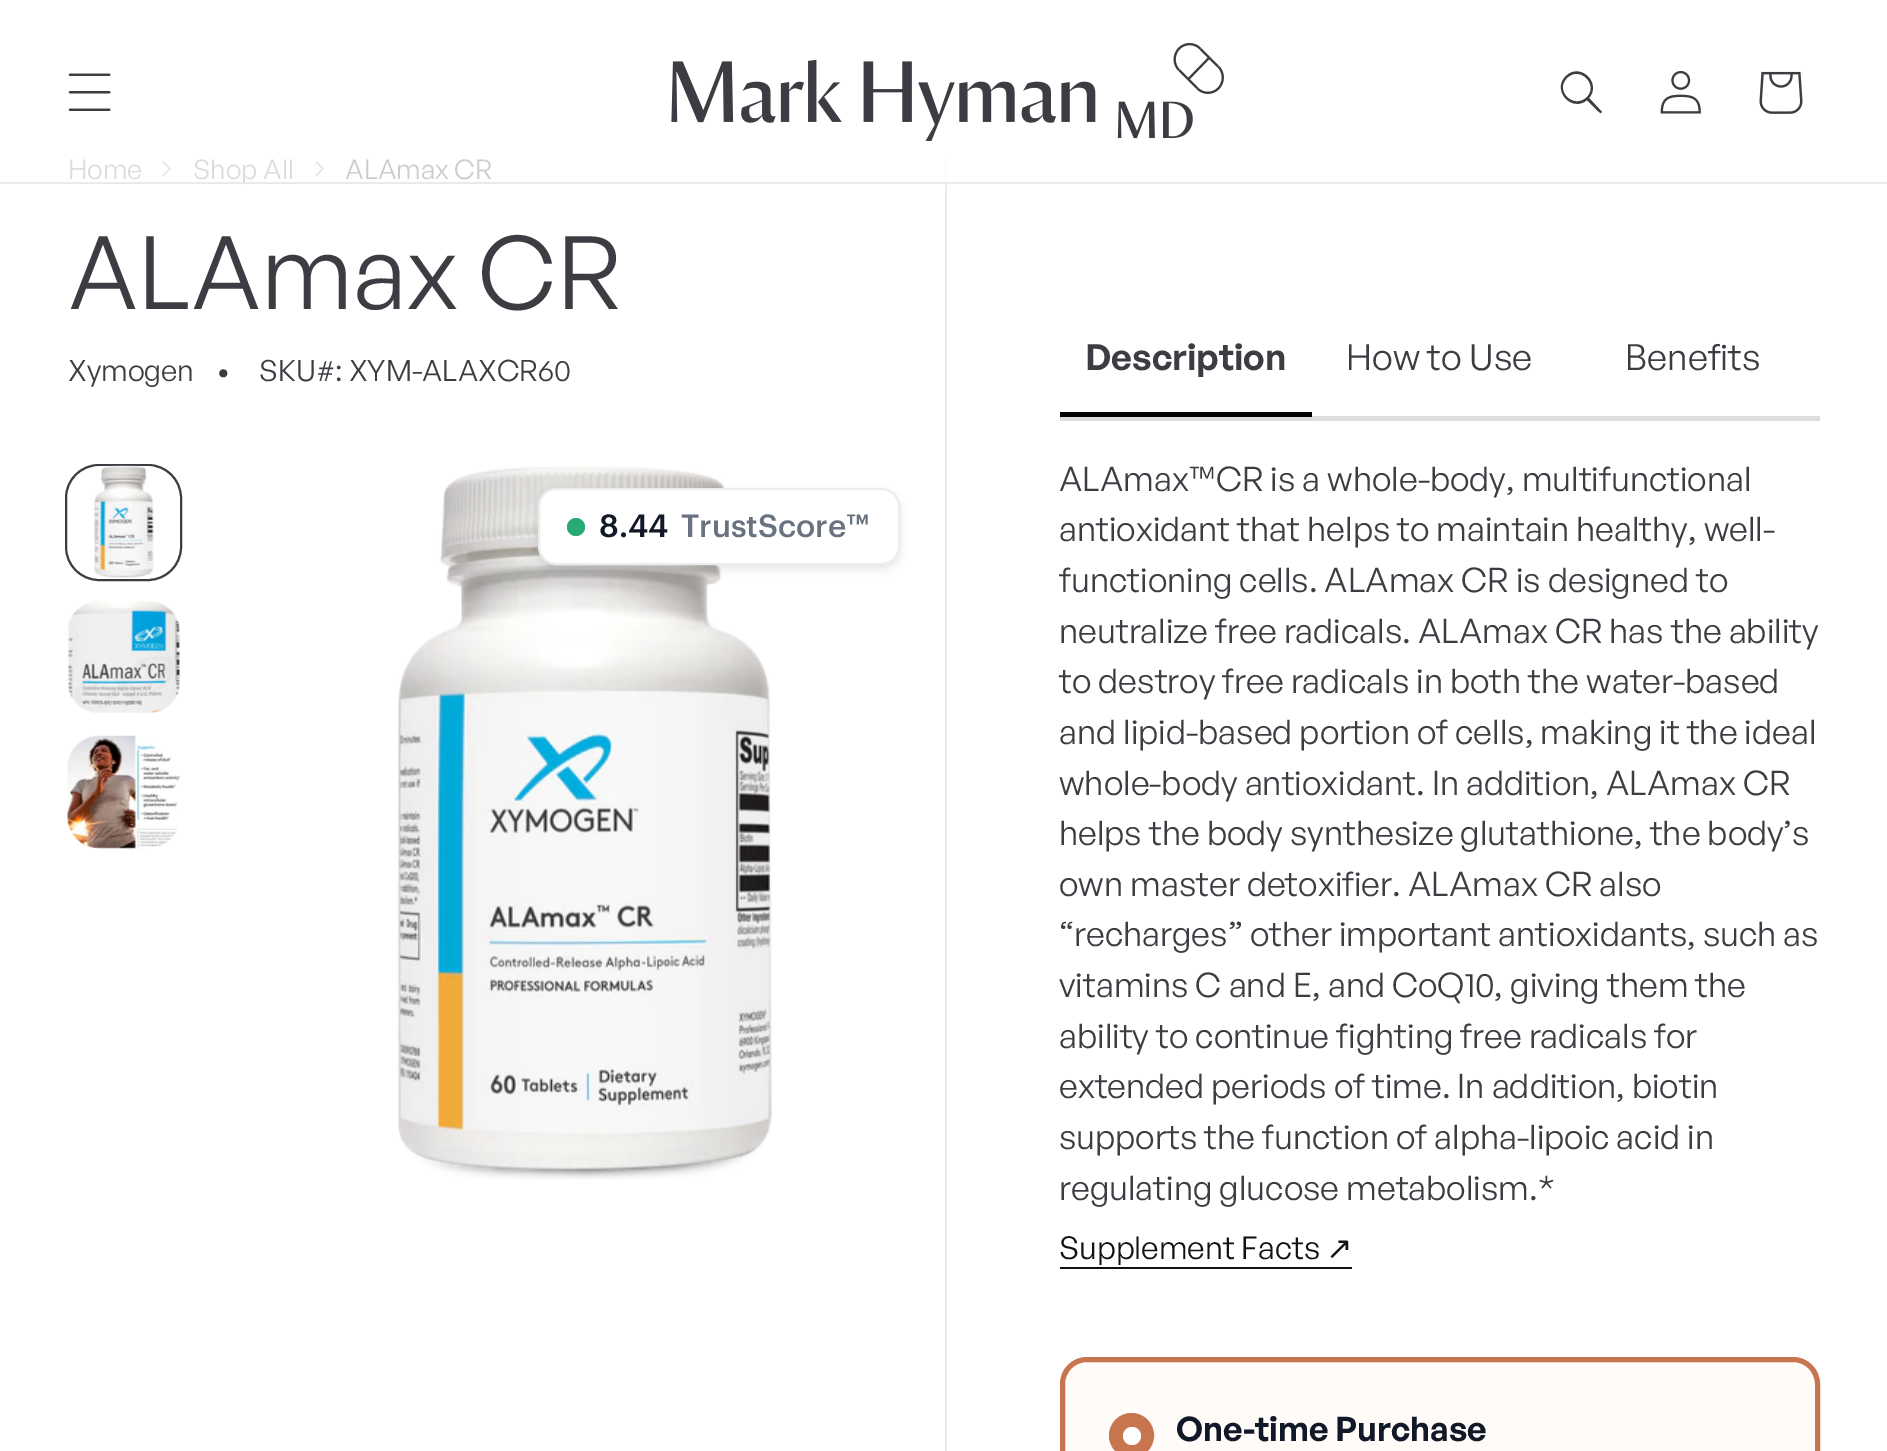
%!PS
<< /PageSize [1887 1451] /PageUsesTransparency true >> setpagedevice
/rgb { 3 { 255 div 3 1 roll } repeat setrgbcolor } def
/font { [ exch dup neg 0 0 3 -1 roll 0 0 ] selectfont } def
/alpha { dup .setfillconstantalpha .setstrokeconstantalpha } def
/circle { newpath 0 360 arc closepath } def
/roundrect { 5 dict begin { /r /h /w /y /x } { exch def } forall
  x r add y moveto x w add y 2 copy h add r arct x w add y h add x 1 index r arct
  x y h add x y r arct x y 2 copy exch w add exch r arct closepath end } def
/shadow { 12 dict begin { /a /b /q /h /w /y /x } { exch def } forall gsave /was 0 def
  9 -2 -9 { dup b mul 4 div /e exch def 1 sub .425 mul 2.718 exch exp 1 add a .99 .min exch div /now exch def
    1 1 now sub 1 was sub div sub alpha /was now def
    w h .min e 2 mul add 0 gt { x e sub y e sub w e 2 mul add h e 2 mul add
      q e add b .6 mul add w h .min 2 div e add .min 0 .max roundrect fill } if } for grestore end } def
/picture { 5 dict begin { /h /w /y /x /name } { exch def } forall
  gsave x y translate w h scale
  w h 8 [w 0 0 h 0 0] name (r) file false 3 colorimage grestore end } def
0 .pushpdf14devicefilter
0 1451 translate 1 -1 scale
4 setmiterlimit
255 255 255 rgb
0 0 1887 1451 rectfill
(img/1.rgb) 68 73 43 38 picture
(img/2.rgb) 671 42 553 99 picture
60 61 66 rgb
1587 97 moveto 1574 110 1554 91 1567 78 curveto 1580 65 1599 85 1587 97 curveto closepath 1587 100 moveto 1572 113 1551 90 1566 76 curveto 1580 62 1602 83 1589 98 curveto 1602 112 lineto 1601 113 lineto 1600 114 1589 102 1587 100 curveto closepath eofill
(img/3.rgb) 1660 70 41 44 picture
(img/4.rgb) 1759 71 44 43 picture
(img/5.rgb) 162 161 9 16 picture
(img/5.rgb) 315 161 9 16 picture
2 setlinewidth
66 465 115 115 33 roundrect stroke
(img/6.rgb) 94 465 60 113 picture
(img/7.rgb) 67 601 113 112 picture
(img/8.rgb) 67 735 114 114 picture
(img/9.rgb) 397 466 376 714 picture
0 0 0 rgb
538 493 362 76 18 4.5 0.1 shadow
255 255 255 rgb
539 489 360 75 17 roundrect gsave fill grestore
236 236 236 rgb
stroke
41 168 120 rgb
576 527 9 circle fill
[
  [945 185 2 1266 235 235 235]
  [945 155 2 30 251 251 251]
  [1060 416 760 5 221 221 221]
  [1060 412 252 5 0 0 0]
  [1060 1267 292 2 18 18 18]
] { aload pop rgb rectfill } forall
254 251 248 rgb
1062.5 1359.5 755 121 24.5 roundrect gsave fill grestore
199 117 78 rgb
5 setlinewidth
stroke
1131.5 1435.5 20 circle gsave fill grestore
stroke
255 255 255 rgb
1132 1436 9 circle fill
/GeneralSans-Regular 27 font
220 220 221 rgb
68 179 moveto (Home) show
193 179 moveto (Shop All) show
234 234 234 rgb
0 182 1887 2 rectfill
204 204 204 rgb
345 179 moveto (ALAmax CR) show
/GeneralSans-Regular 101.25 font
60 61 66 rgb
68 309 moveto (ALAmax CR) show
/GeneralSans-Regular 29.25 font
[
  [(Xymogen) 68 381]
  [(•) 216 381]
  [(SKU#: XYM-ALAXCR60) 259 381]
] { aload pop moveto show } forall
/Graphik-Medium 31.5 font
17 24 39 rgb
599 537 moveto (8.44) show
104 114 128 rgb
681 537 moveto (TrustScore™) show
/GeneralSans-SemiBold 36 font
60 61 66 rgb
1085 370 moveto (Description) show
/GeneralSans-Regular 36 font
1346 370 moveto (How to Use) show
1625 370 moveto (Benefits) show
/GeneralSans-Regular 33.75 font
[
  [(ALAmax™CR is a whole-body, multifunctional) 1059 491]
  [(antioxidant that helps to maintain healthy, well-) 1059 541]
  [(functioning cells. ALAmax CR is designed to) 1059 592]
  [(neutralize free radicals. ALAmax CR has the ability) 1059 643]
  [(to destroy free radicals in both the water-based) 1059 693]
  [(and lipid-based portion of cells, making it the ideal) 1059 744]
  [(whole-body antioxidant. In addition, ALAmax CR) 1059 795]
  [(helps the body synthesize glutathione, the body’s) 1059 845]
  [(own master detoxifier. ALAmax CR also) 1059 896]
  [(“recharges” other important antioxidants, such as) 1059 946]
  [(vitamins C and E, and CoQ10, giving them the) 1059 997]
  [(ability to continue fighting free radicals for) 1059 1048]
  [(extended periods of time. In addition, biotin) 1059 1098]
  [(supports the function of alpha-lipoic acid in) 1059 1149]
  [(regulating glucose metabolism.*) 1059 1200]
] { aload pop moveto show } forall
/GeneralSans-Regular 31.5 font
18 18 18 rgb
1059 1259 moveto (Supplement Facts) show
/DejaVuSans-Regular 31.5 font
1326 1259 moveto (↗) show
/GeneralSans-SemiBold 33.75 font
17 24 39 rgb
1176 1441 moveto (One-time Purchase) show
.poppdf14devicefilter showpage
